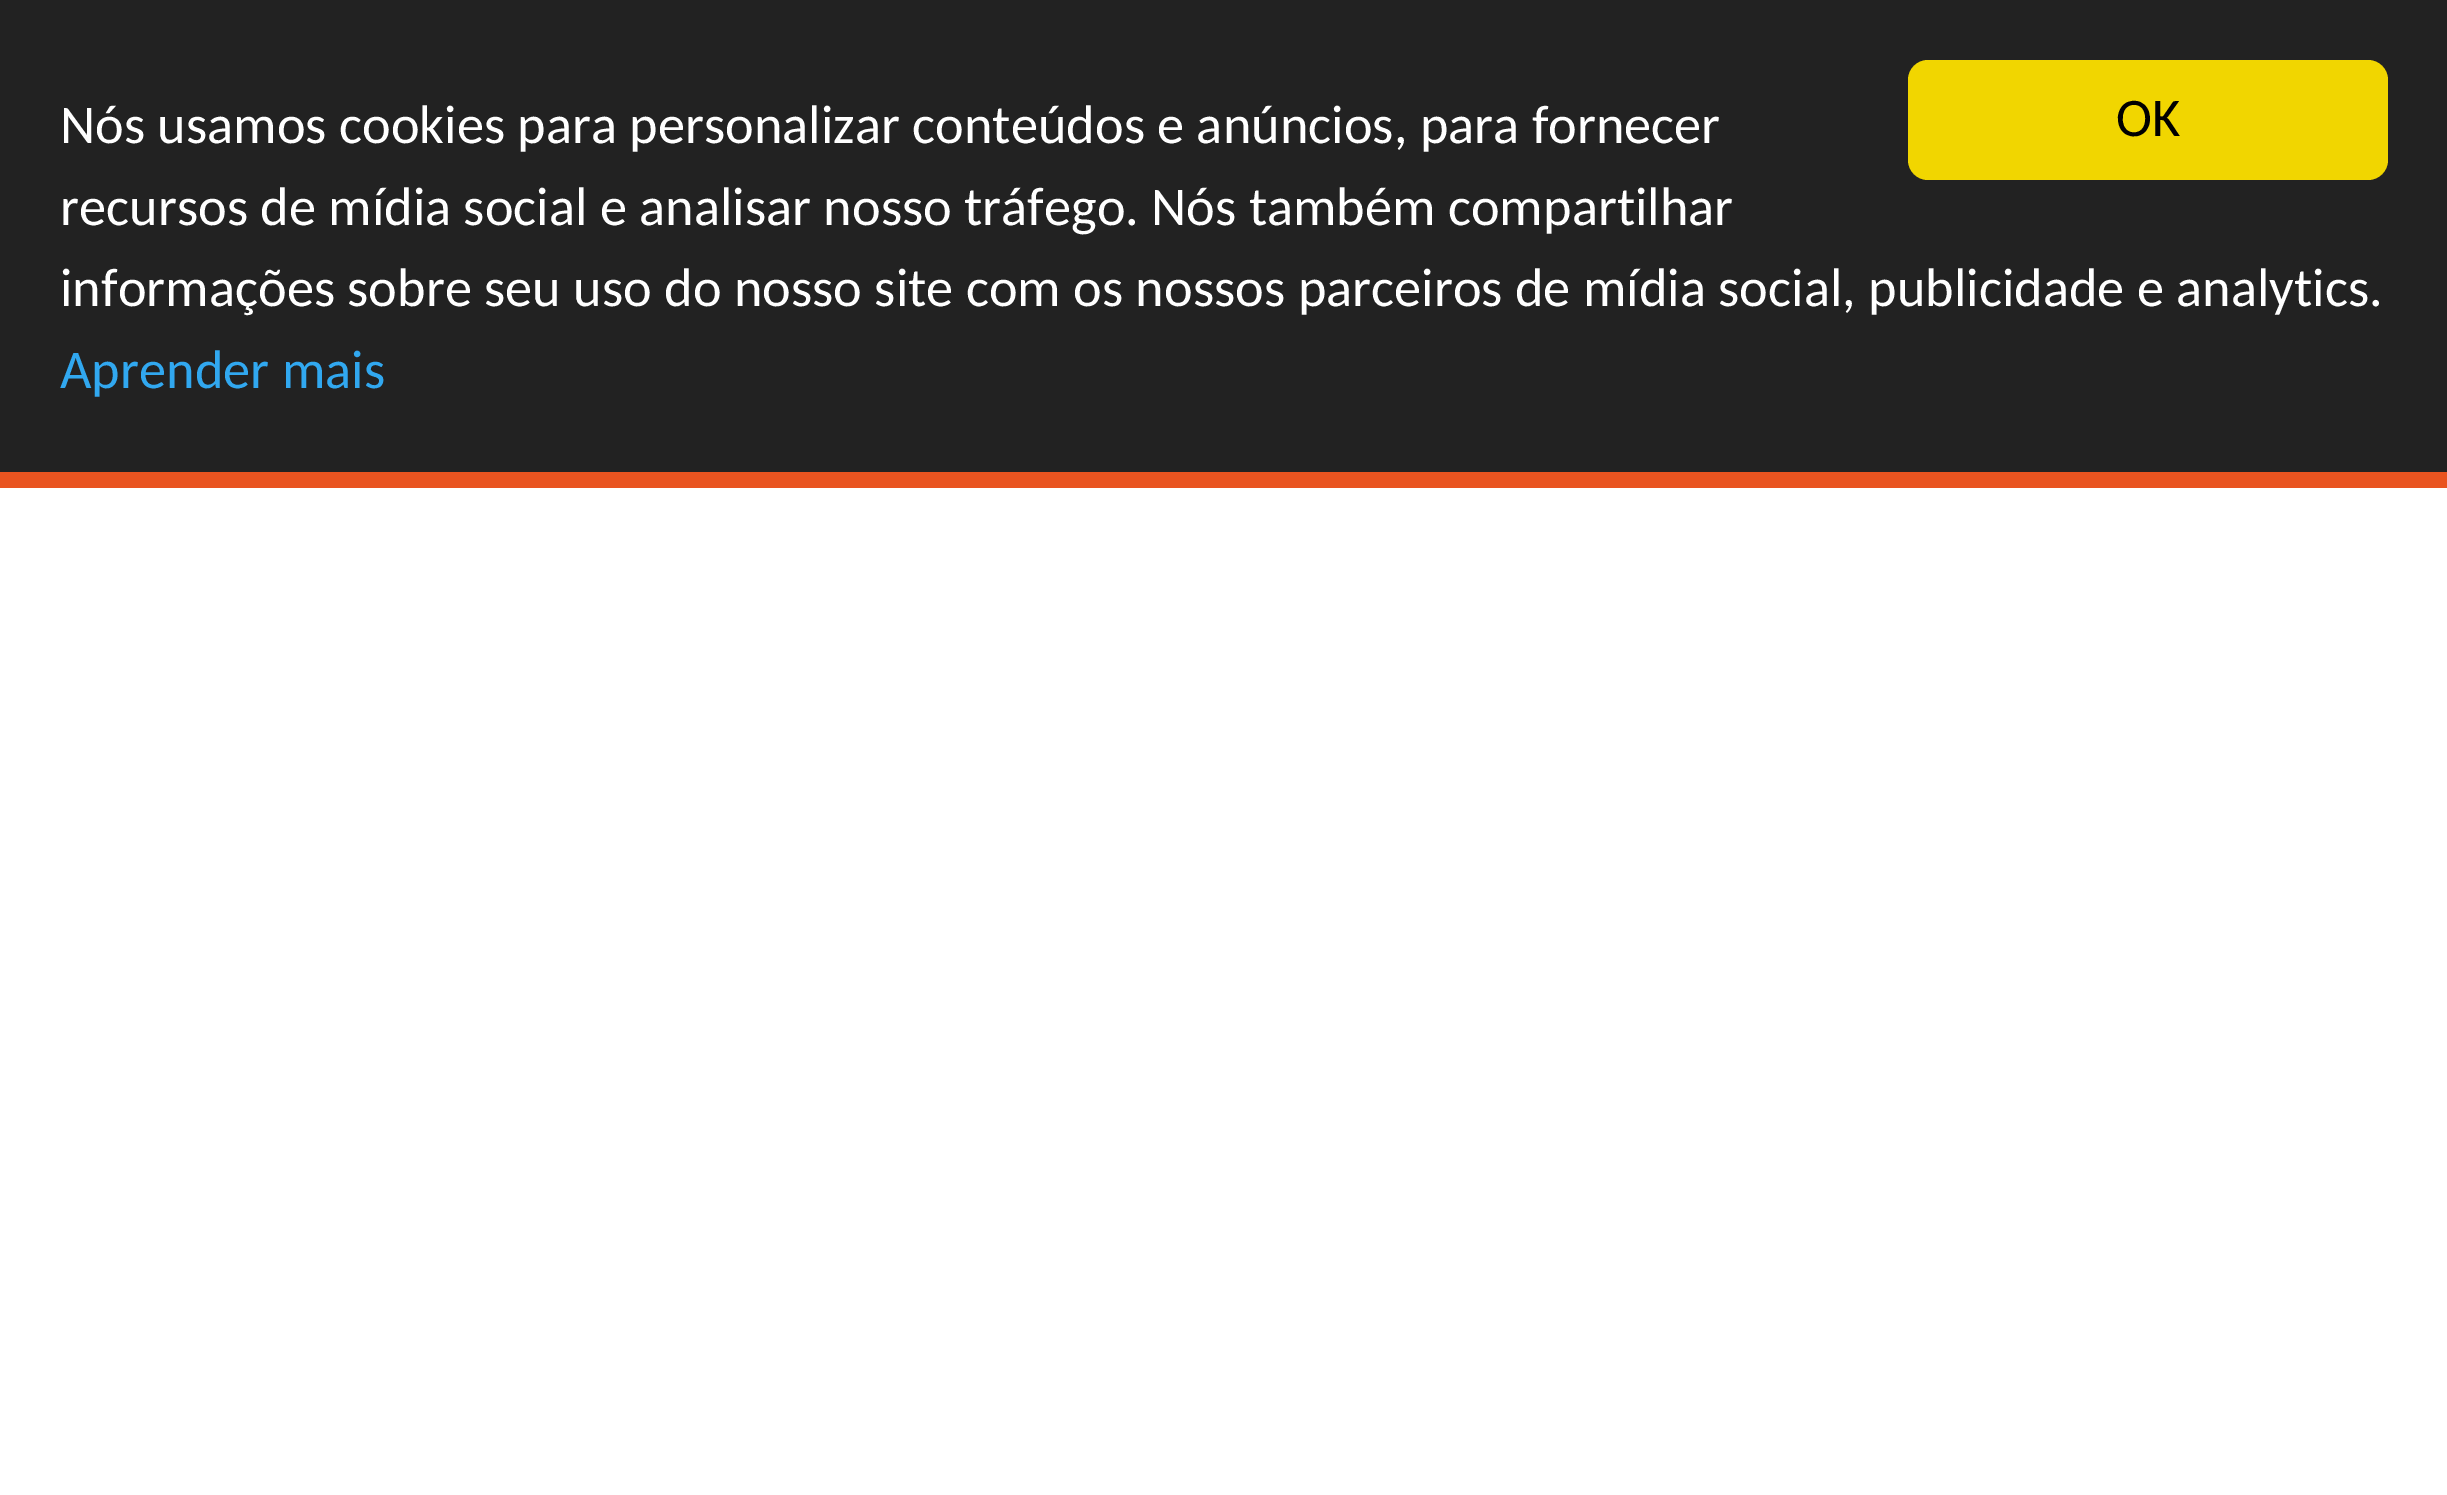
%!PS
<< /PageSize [2447 1495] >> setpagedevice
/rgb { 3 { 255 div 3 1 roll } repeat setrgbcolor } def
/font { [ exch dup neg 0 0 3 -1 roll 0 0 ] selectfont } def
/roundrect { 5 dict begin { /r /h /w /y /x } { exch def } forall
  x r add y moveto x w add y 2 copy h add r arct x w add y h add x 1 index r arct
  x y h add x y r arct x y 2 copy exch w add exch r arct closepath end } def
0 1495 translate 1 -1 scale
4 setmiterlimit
255 255 255 rgb
0 0 2447 1495 rectfill
34 34 34 rgb
0 0 2447 472 rectfill
241 214 0 rgb
1908 60 480 120 20 roundrect fill
233 84 32 rgb
0 472 2447 16 rectfill
/Carlito-Regular 54.4 font
0 0 0 rgb
2116 136 moveto (OK) show
255 255 255 rgb
[
  [(Nós usamos cookies para personalizar conteúdos e anúncios, para fornecer) 60 143]
  [(recursos de mídia social e analisar nosso tráfego. Nós também compartilhar) 60 225]
  [(informações sobre seu uso do nosso site com os nossos parceiros de mídia social, publicidade e analytics.) 60 306]
] { aload pop moveto show } forall
49 168 240 rgb
60 388 moveto (Aprender mais) show
showpage
